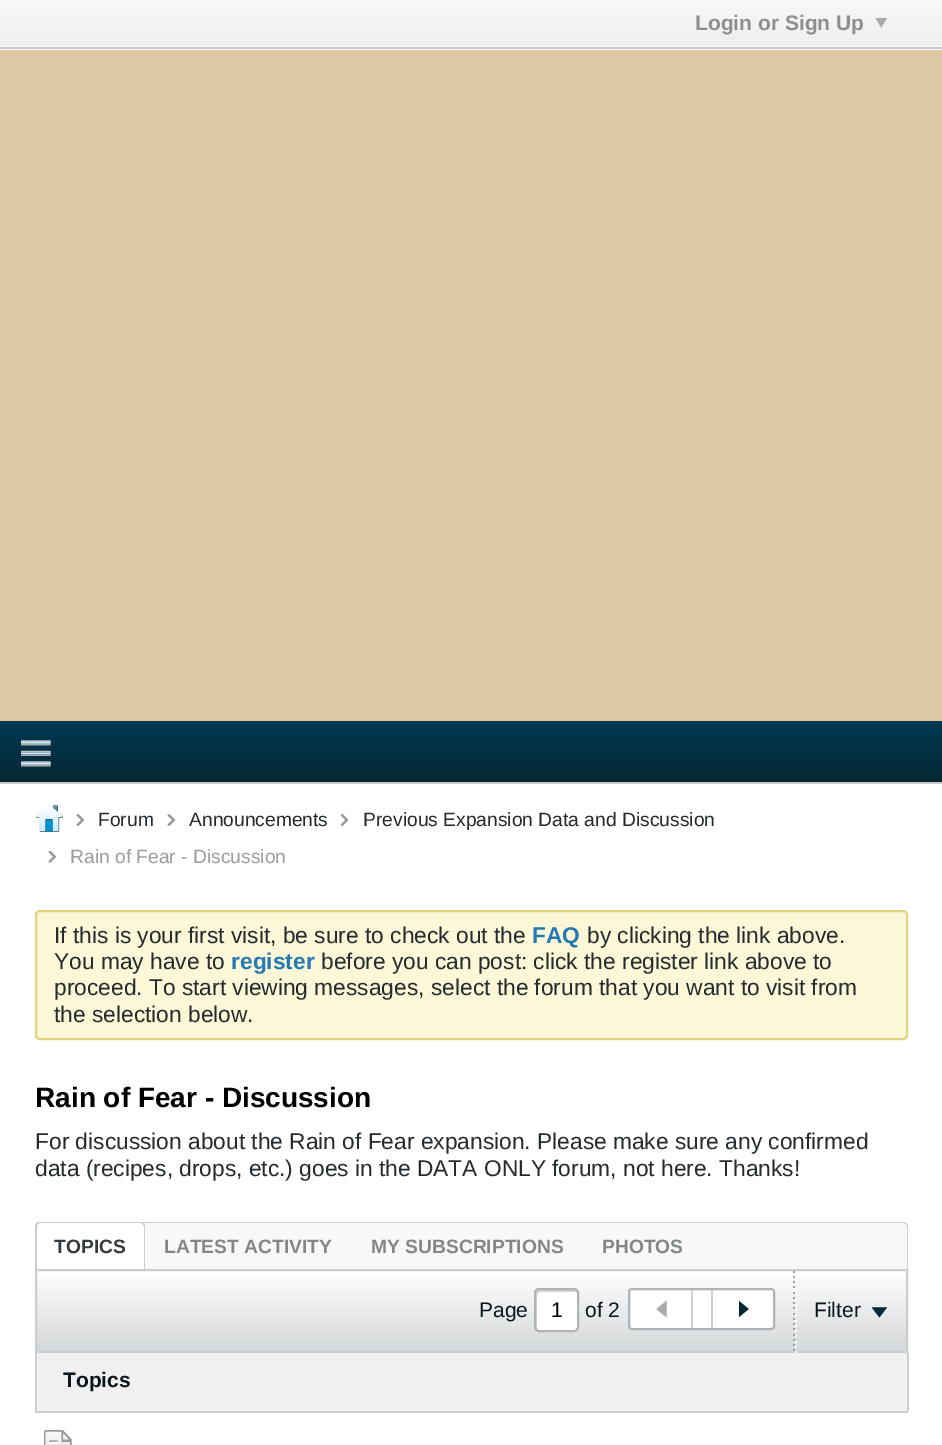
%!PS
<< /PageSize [942 1445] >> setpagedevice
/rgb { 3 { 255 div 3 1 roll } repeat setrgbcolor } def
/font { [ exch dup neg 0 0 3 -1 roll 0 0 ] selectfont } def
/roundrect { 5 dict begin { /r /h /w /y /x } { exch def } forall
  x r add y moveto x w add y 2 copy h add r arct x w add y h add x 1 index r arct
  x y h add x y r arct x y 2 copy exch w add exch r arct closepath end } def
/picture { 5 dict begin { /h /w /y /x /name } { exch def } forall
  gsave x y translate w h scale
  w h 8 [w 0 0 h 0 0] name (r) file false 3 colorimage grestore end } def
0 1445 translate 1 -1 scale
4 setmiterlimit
222 201 163 rgb
0 0 942 1445 rectfill
gsave 0 0 moveto 942 0 lineto 942 46 lineto 0 46 lineto closepath clip newpath
<< /ShadingType 2 /ColorSpace /DeviceRGB /Coords [472 0 472 49] /Extend [true true] /Function << /FunctionType 2 /Domain [0 1] /C0 [0.973 0.973 0.973] /C1 [0.937 0.929 0.933] /N 1 >> >> shfill grestore
(img/1.rgb) 875 18 12 10 picture
250 250 250 rgb
0 46 942 4 rectfill
199 200 201 rgb
0 47 942 2 rectfill
gsave 0 721 moveto 942 721 lineto 942 782 lineto 0 782 lineto closepath clip newpath
<< /ShadingType 2 /ColorSpace /DeviceRGB /Coords [472 721 472 782] /Extend [true true] /Function << /FunctionType 2 /Domain [0 1] /C0 [0.004 0.227 0.329] /C1 [0.02 0.153 0.2] /N 1 >> >> shfill grestore
196 199 200 rgb
0 782 942 2 rectfill
(img/2.rgb) 21 740 30 27 picture
255 255 255 rgb
0 784 942 661 rectfill
(img/3.rgb) 35 805 28 27 picture
(img/4.rgb) 76 814 8 12 picture
(img/4.rgb) 167 814 8 12 picture
(img/5.rgb) 340 814 8 12 picture
(img/6.rgb) 48 851 8 12 picture
252 247 215 rgb
36 911 871 128 4 roundrect gsave fill grestore
225 212 126 rgb
2 setlinewidth
stroke
248 248 248 rgb
40 1222 moveto 903 1222 lineto 906 1222 908 1224 908 1227 curveto 908 1269 lineto 35 1269 lineto 35 1227 lineto 35 1224 37 1222 40 1222 curveto closepath fill
201 206 210 rgb
40 1222 moveto 903 1222 lineto 906 1222 908 1224 908 1227 curveto 908 1269 lineto 35 1269 lineto 35 1227 lineto 35 1224 37 1222 40 1222 curveto closepath 40 1223 moveto 903 1223 lineto 905 1223 906 1225 906 1227 curveto 906 1269 lineto 37 1269 lineto 37 1227 lineto 37 1225 38 1223 40 1223 curveto closepath eofill
248 248 248 rgb
42 1223 moveto 902 1223 lineto 905 1223 907 1225 907 1228 curveto 907 1269 lineto 42 1269 lineto 39 1269 37 1267 37 1264 curveto 37 1228 lineto 37 1225 39 1223 42 1223 curveto closepath fill
255 255 255 rgb
40 1222 moveto 140 1222 lineto 143 1222 145 1224 145 1227 curveto 145 1269 lineto 35 1269 lineto 35 1227 lineto 35 1224 37 1222 40 1222 curveto closepath fill
201 206 210 rgb
40 1222 moveto 140 1222 lineto 143 1222 145 1224 145 1227 curveto 145 1269 lineto 35 1269 lineto 35 1227 lineto 35 1224 37 1222 40 1222 curveto closepath 40 1223 moveto 140 1223 lineto 142 1223 144 1225 144 1227 curveto 144 1269 lineto 37 1269 lineto 37 1227 lineto 37 1225 38 1223 40 1223 curveto closepath eofill
gsave 37 1274 moveto 906 1274 lineto 906 1351 lineto 37 1351 lineto closepath clip newpath
<< /ShadingType 2 /ColorSpace /DeviceRGB /Coords [472 1271 472 1351] /Extend [true true] /Function << /FunctionType 2 /Domain [0 1] /C0 [0.996 0.996 1] /C1 [0.835 0.847 0.855] /N 1 >> >> shfill grestore
36 1270 871 82 rectstroke
255 255 255 rgb
534 1288 45 44 5 roundrect fill
213 213 213 rgb
541 1292 moveto 578 1292 lineto 577 1291 576 1290 574 1290 curveto 540 1290 lineto 538 1290 536 1292 536 1294 curveto 536 1326 lineto 536 1327 536 1328 537 1329 curveto 537 1300 lineto 537 1297 536 1292 541 1292 curveto closepath fill
174 179 182 rgb
535 1289 43 42 4 roundrect stroke
255 255 255 rgb
629 1289 145 40 3 roundrect gsave fill grestore
174 179 182 rgb
stroke
205 209 212 rgb
691 1290 2 38 rectfill
(img/7.rgb) 656 1300 11 18 picture
711 1290 2 38 rectfill
(img/8.rgb) 739 1300 10 18 picture
[
  [793 1271 2 2 155 163 169]
  [793 1276 2 2 155 163 169]
  [793 1281 2 2 155 163 169]
  [793 1286 2 2 155 163 169]
  [793 1292 2 2 155 163 169]
  [793 1297 2 2 155 163 169]
  [793 1302 2 2 155 163 169]
  [793 1307 2 2 155 163 169]
  [793 1313 2 2 155 163 169]
  [793 1318 2 2 155 163 169]
  [793 1323 2 2 155 163 169]
  [793 1328 2 2 155 163 169]
  [793 1334 2 2 155 163 169]
  [793 1339 2 2 155 163 169]
  [793 1344 2 2 155 163 169]
  [793 1349 2 2 155 163 169]
  [795 1278 2 2 255 255 255]
  [795 1283 2 2 255 255 255]
  [795 1288 2 2 255 255 255]
  [795 1293 2 2 255 255 255]
  [795 1299 2 2 255 255 255]
  [795 1304 2 2 255 255 255]
  [795 1309 2 2 255 255 255]
  [795 1314 2 2 255 255 255]
  [795 1320 2 2 255 255 255]
  [795 1325 2 2 255 255 255]
  [795 1330 2 2 255 255 255]
  [795 1335 2 2 255 255 255]
  [795 1341 2 2 255 255 255]
  [795 1346 2 2 255 255 255]
  [795 1351 2 2 255 255 255]
] { aload pop rgb rectfill } forall
(img/9.rgb) 872 1307 15 11 picture
[
  [37 1353 870 58 240 240 240]
  [907 1353 2 58 201 206 210]
  [35 1353 2 58 201 206 210]
  [35 1411 873 2 201 206 210]
] { aload pop rgb rectfill } forall
(img/10.rgb) 44 1430 28 15 picture
/LiberationSans-Bold 21 font
142 142 142 rgb
695 30 moveto (Login or Sign Up) show
/LiberationSans-Regular 19.25 font
37 44 47 rgb
[
  [(Forum) 98 826]
  [(Announcements) 189 826]
  [(Previous Expansion Data and Discussion) 363 826]
] { aload pop moveto show } forall
158 157 157 rgb
70 863 moveto (Rain of Fear - Discussion) show
/LiberationSans-Regular 22.75 font
37 44 47 rgb
54 943 moveto (If this is your first visit, be sure to check out the) show
/LiberationSans-Bold 22.75 font
35 121 181 rgb
532 943 moveto (FAQ) show
/LiberationSans-Regular 22.75 font
37 44 47 rgb
587 943 moveto (by clicking the link above.) show
54 969 moveto (You may have to) show
/LiberationSans-Bold 22.75 font
35 121 181 rgb
231 969 moveto (register) show
/LiberationSans-Regular 22.75 font
37 44 47 rgb
[
  [(before you can post: click the register link above to) 321 969]
  [(proceed. To start viewing messages, select the forum that you want to visit from) 54 995]
  [(the selection below.) 54 1022]
] { aload pop moveto show } forall
/LiberationSans-Bold 28 font
0 0 0 rgb
35 1107 moveto (Rain of Fear - Discussion) show
/LiberationSans-Regular 22.75 font
37 44 47 rgb
35 1149 moveto (For discussion about the Rain of Fear expansion. Please make sure any confirmed) show
35 1176 moveto (data \(recipes, drops, etc.\) goes in the DATA ONLY forum, not here. Thanks!) show
/LiberationSans-Bold 19.25 font
52 58 61 rgb
54 1253 moveto (TOPICS) show
131 135 137 rgb
[
  [(LATEST ACTIVITY) 164 1253]
  [(MY SUBSCRIPTIONS) 371 1253]
  [(PHOTOS) 602 1253]
] { aload pop moveto show } forall
/LiberationSans-Regular 21 font
9 22 27 rgb
479 1317 moveto (Page) show
0 0 0 rgb
551 1317 moveto (1) show
9 22 27 rgb
585 1317 moveto (of 2) show
814 1317 moveto (Filter) show
/LiberationSans-Bold 21 font
63 1387 moveto (Topics) show
showpage
